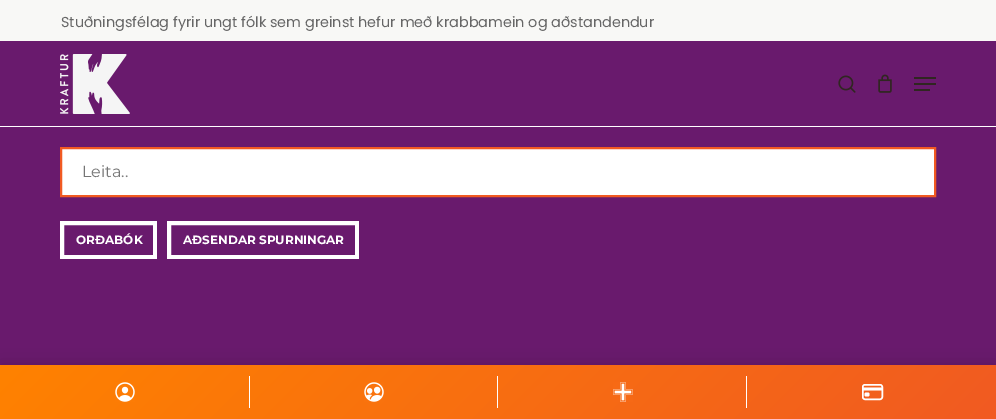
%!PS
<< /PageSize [996 419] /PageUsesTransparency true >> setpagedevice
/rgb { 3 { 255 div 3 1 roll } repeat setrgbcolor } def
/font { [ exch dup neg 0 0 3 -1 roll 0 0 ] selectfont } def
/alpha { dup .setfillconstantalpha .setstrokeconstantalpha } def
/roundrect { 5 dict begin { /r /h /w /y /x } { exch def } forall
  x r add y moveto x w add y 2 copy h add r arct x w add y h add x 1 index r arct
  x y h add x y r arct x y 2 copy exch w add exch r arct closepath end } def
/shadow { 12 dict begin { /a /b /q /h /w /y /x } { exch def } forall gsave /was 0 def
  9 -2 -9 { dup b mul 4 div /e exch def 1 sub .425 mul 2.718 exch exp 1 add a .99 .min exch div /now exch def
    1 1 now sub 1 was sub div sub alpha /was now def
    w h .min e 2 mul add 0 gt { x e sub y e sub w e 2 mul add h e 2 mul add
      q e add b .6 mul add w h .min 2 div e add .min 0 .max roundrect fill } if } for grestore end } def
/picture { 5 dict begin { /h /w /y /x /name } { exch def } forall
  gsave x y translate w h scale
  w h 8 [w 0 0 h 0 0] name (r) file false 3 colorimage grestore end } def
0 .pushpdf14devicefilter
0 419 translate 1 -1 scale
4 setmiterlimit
255 255 255 rgb
0 0 996 419 rectfill
105 26 109 rgb
0 41 996 85 rectfill
248 248 246 rgb
0 0 996 41 rectfill
(img/1.rgb) 60 54 70 60 picture
(img/2.rgb) 838 75 18 18 picture
(img/3.rgb) 878 74 14 19 picture
[
  [914 77 22 2 48 38 33]
  [914 89 16 2 48 38 33]
  [914 83 22 2 48 38 33]
  [0 127 996 238 105 26 109]
] { aload pop rgb rectfill } forall
255 255 255 rgb
61 148 moveto 935 148 lineto 935 196 lineto 61 196 lineto closepath gsave fill grestore
241 90 34 rgb
2 setlinewidth
stroke
gsave
60 221 97 38 rectclip
255 255 255 rgb
8 setlinewidth
60 221 97 38 rectstroke
grestore
gsave
167 221 192 38 rectclip
255 255 255 rgb
8 setlinewidth
167 221 192 38 rectstroke
grestore
0 0 0 rgb
0 365 996 54 0 10 0.15 shadow
gsave 0 365 moveto 996 365 lineto 996 419 lineto 0 419 lineto closepath clip newpath
<< /ShadingType 2 /ColorSpace /DeviceRGB /Coords [236 130 761 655] /Extend [true true] /Function << /FunctionType 2 /Domain [0 1] /C0 [1 0.51 0] /C1 [0.945 0.353 0.133] /N 1 >> >> shfill grestore
(img/4.rgb) 115 382 20 20 picture
255 255 255 rgb
249 376 1 32 rectfill
(img/5.rgb) 364 382 20 20 picture
497 376 1 32 rectfill
(img/6.rgb) 613 382 20 20 picture
746 376 1 32 rectfill
1.5 setlinewidth
862.75 384.75 19.5 14.5 2.25 roundrect stroke
2.8 setlinewidth
1 setlinejoin
862 389 moveto 882 389 lineto 866 394 moveto 868 394 lineto 868 395 lineto 866 395 lineto closepath stroke
/Poppins-Regular 14.4 font
102 102 102 rgb
61 27 moveto (Stuðningsfélag fyrir ungt fólk sem greinst hefur með krabbamein og aðstandendur) show
/Montserrat-Regular 16 font
117 117 117 rgb
82 177 moveto (Leita..) show
/Montserrat-Bold 12 font
255 255 255 rgb
76 244 moveto (ORÐABÓK) show
183 244 moveto (AÐSENDAR SPURNINGAR) show
.poppdf14devicefilter showpage
